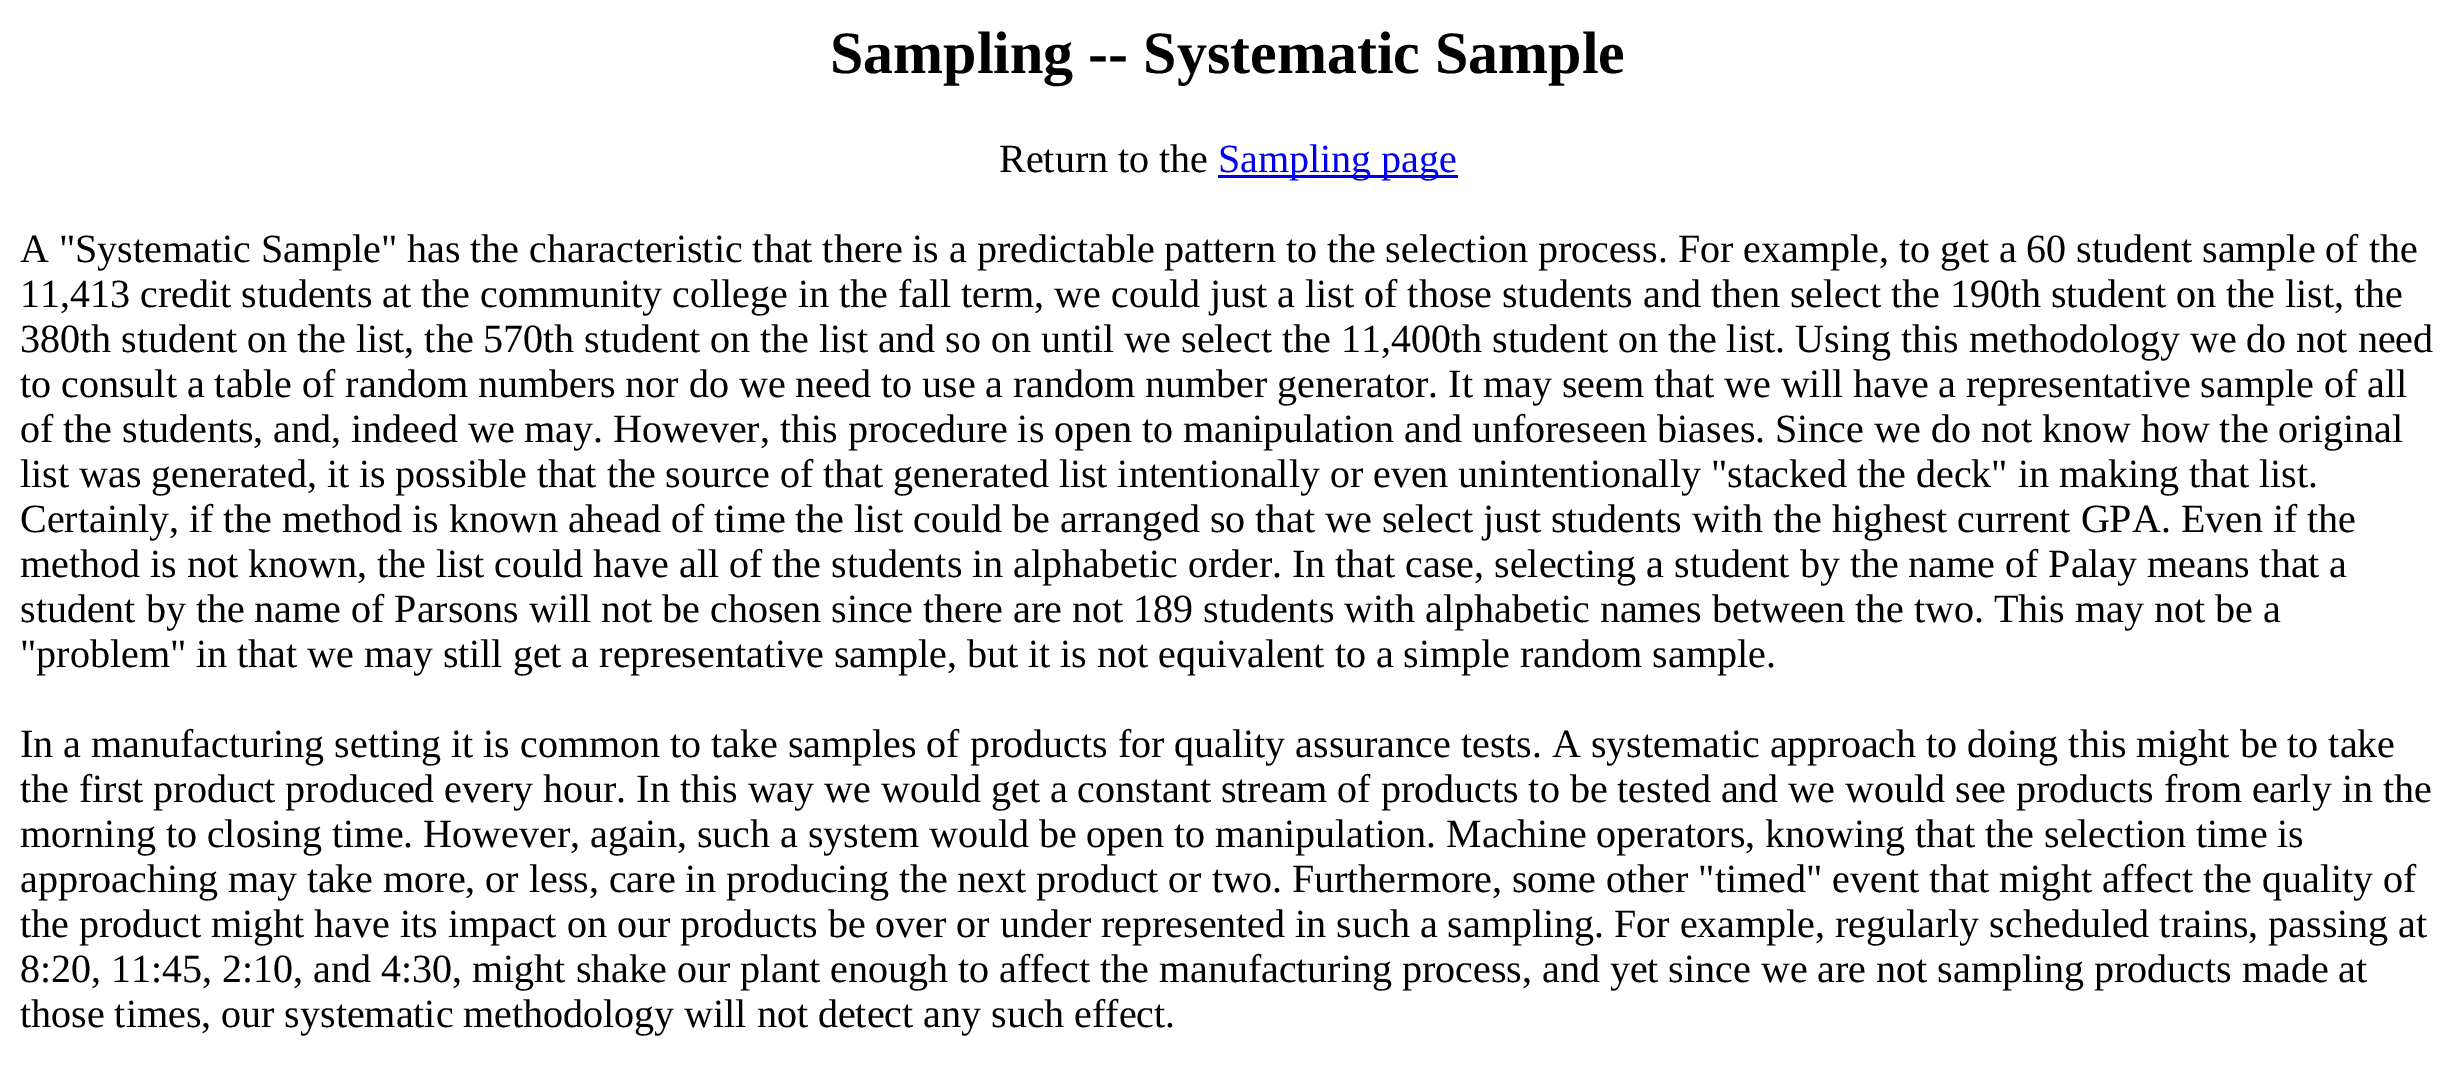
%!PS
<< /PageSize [2453 1069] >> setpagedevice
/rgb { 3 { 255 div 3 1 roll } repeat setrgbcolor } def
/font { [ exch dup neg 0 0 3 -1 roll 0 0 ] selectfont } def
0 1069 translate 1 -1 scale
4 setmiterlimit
255 255 255 rgb
0 0 2453 1069 rectfill
0 0 238 rgb
1218 175 240 3 rectfill
/LiberationSerif-Bold 60 font
0 0 0 rgb
830 73 moveto (Sampling -- Systematic Sample) show
/LiberationSerif-Regular 40 font
999 172 moveto (Return to the) show
0 0 238 rgb
1218 172 moveto (Sampling page) show
0 0 0 rgb
[
  [(A "Systematic Sample" has the characteristic that there is a predictable pattern to the selection process. For example, to get a 60 student sample of the) 20 262]
  [(11,413 credit students at the community college in the fall term, we could just a list of those students and then select the 190th student on the list, the) 20 307]
  [(380th student on the list, the 570th student on the list and so on until we select the 11,400th student on the list. Using this methodology we do not need) 20 352]
  [(to consult a table of random numbers nor do we need to use a random number generator. It may seem that we will have a representative sample of all) 20 397]
  [(of the students, and, indeed we may. However, this procedure is open to manipulation and unforeseen biases. Since we do not know how the original) 20 442]
  [(list was generated, it is possible that the source of that generated list intentionally or even unintentionally "stacked the deck" in making that list.) 20 487]
  [(Certainly, if the method is known ahead of time the list could be arranged so that we select just students with the highest current GPA. Even if the) 20 532]
  [(method is not known, the list could have all of the students in alphabetic order. In that case, selecting a student by the name of Palay means that a) 20 577]
  [(student by the name of Parsons will not be chosen since there are not 189 students with alphabetic names between the two. This may not be a) 20 622]
  [("problem" in that we may still get a representative sample, but it is not equivalent to a simple random sample.) 20 667]
  [(In a manufacturing setting it is common to take samples of products for quality assurance tests. A systematic approach to doing this might be to take) 20 757]
  [(the first product produced every hour. In this way we would get a constant stream of products to be tested and we would see products from early in the) 20 802]
  [(morning to closing time. However, again, such a system would be open to manipulation. Machine operators, knowing that the selection time is) 20 847]
  [(approaching may take more, or less, care in producing the next product or two. Furthermore, some other "timed" event that might affect the quality of) 20 892]
  [(the product might have its impact on our products be over or under represented in such a sampling. For example, regularly scheduled trains, passing at) 20 937]
  [(8:20, 11:45, 2:10, and 4:30, might shake our plant enough to affect the manufacturing process, and yet since we are not sampling products made at) 20 982]
  [(those times, our systematic methodology will not detect any such effect.) 20 1027]
] { aload pop moveto show } forall
showpage
